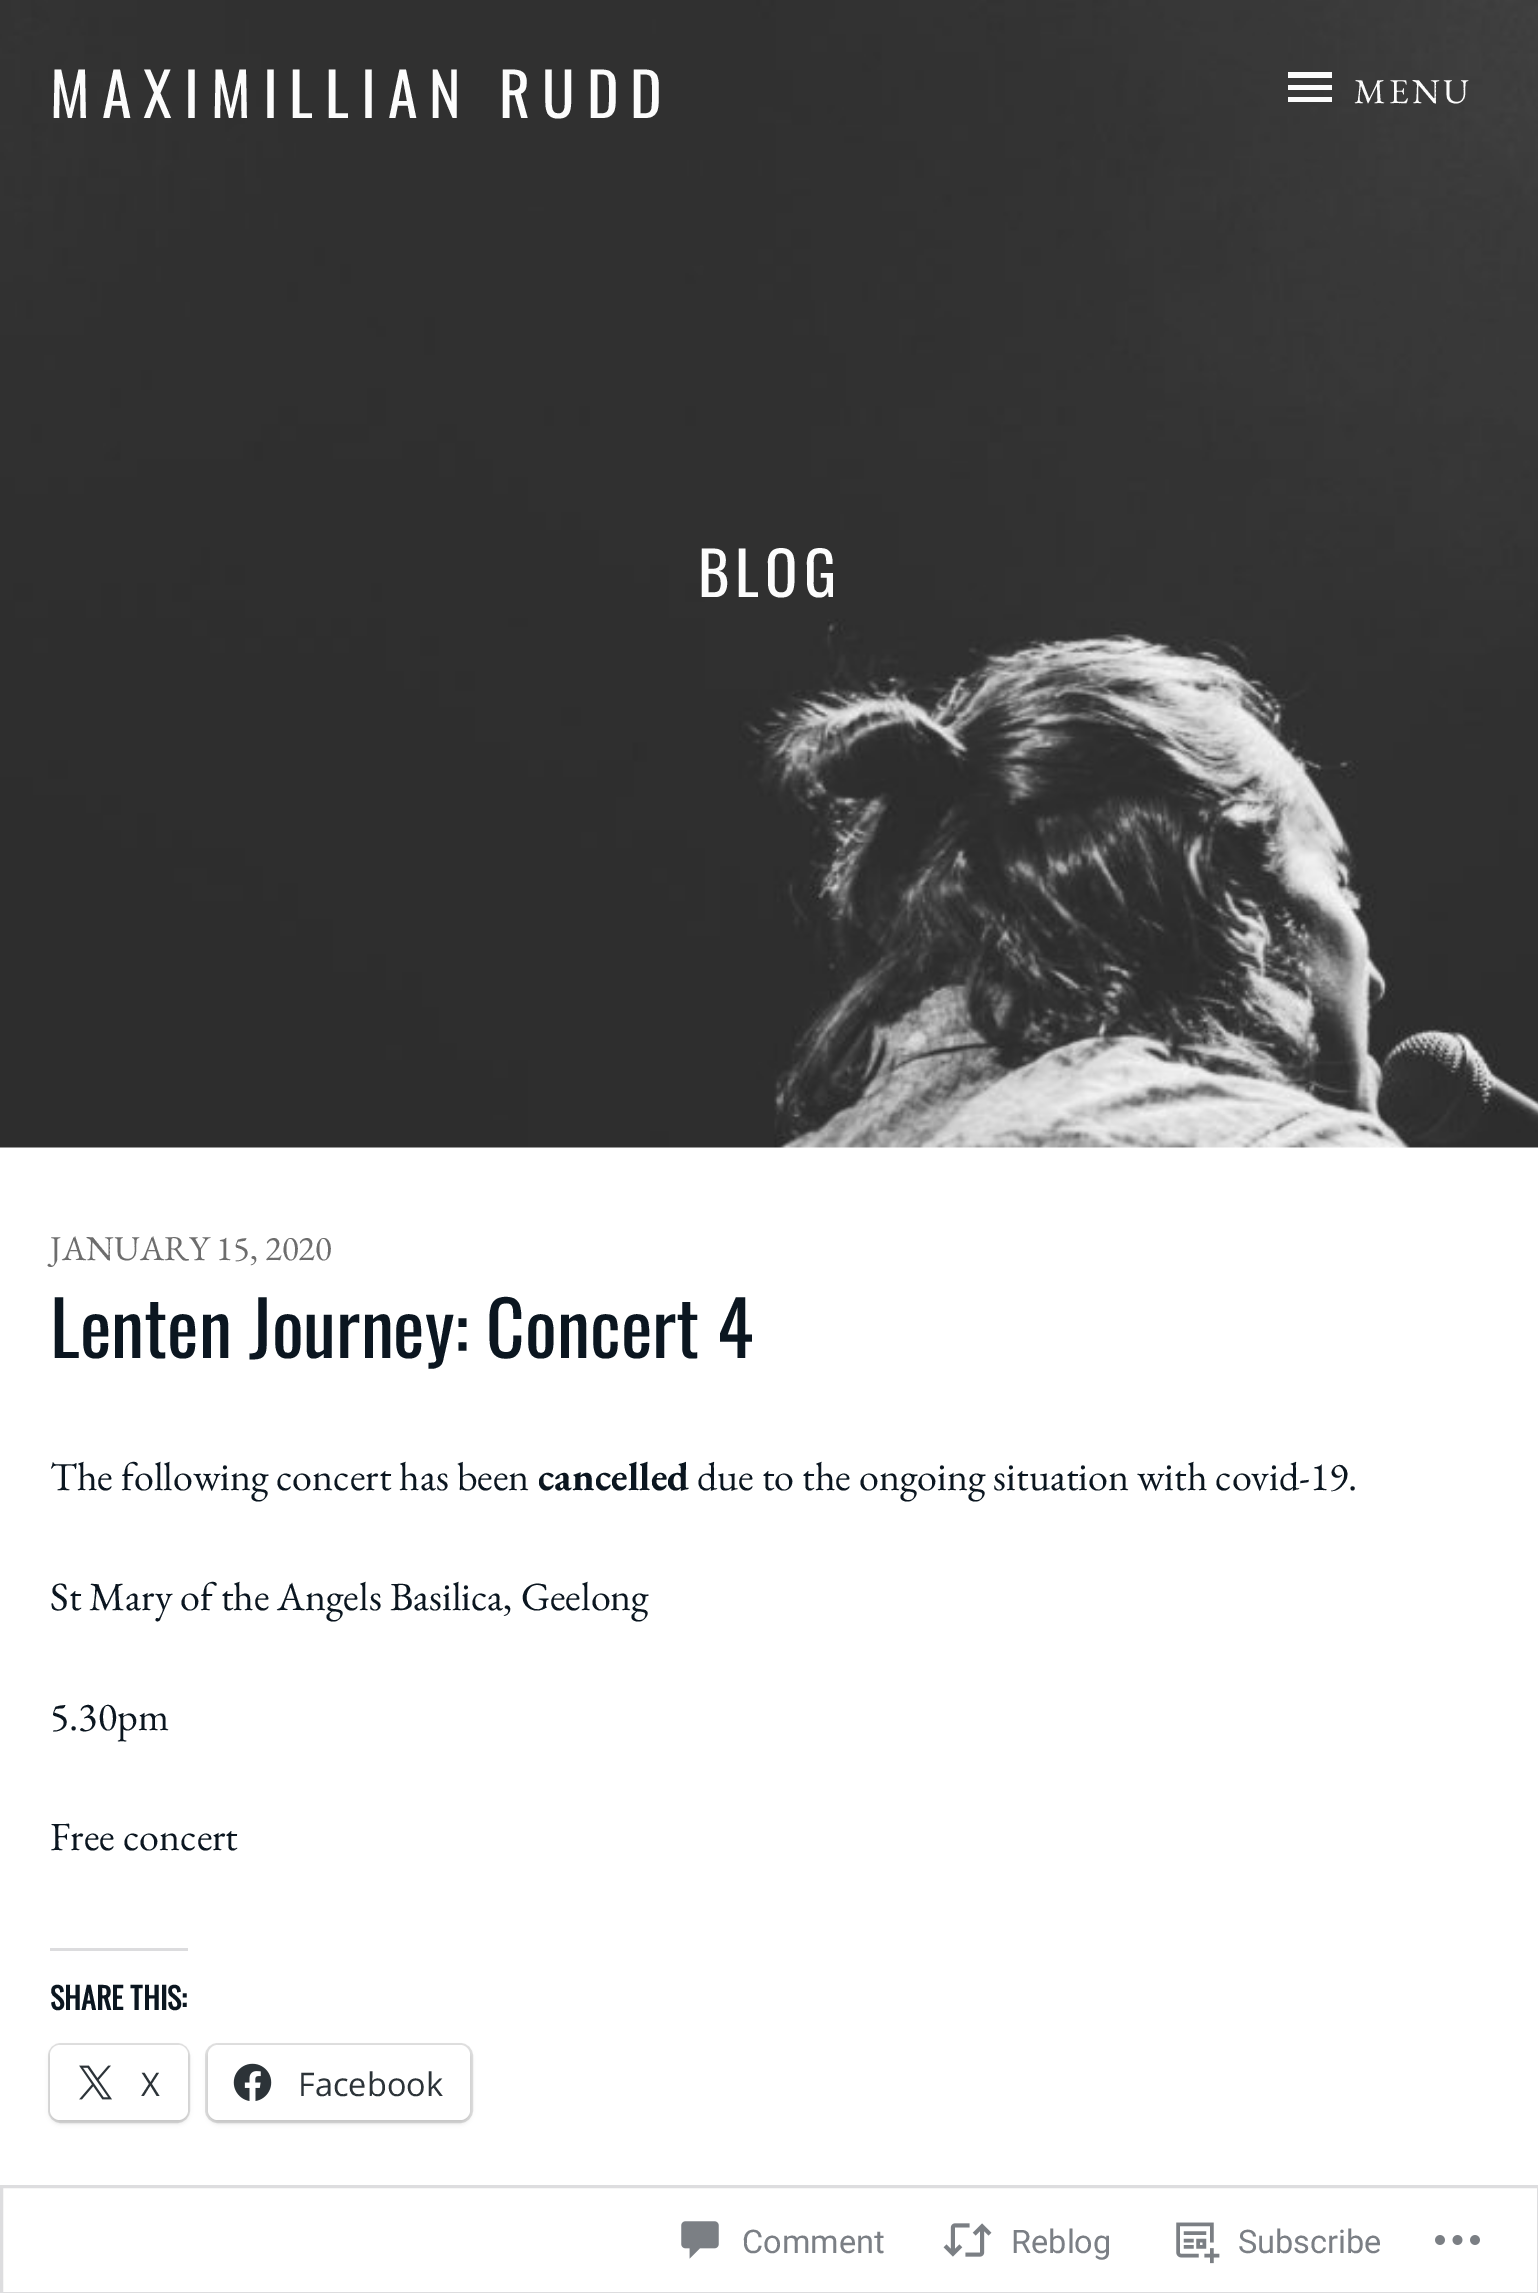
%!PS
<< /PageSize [1538 2293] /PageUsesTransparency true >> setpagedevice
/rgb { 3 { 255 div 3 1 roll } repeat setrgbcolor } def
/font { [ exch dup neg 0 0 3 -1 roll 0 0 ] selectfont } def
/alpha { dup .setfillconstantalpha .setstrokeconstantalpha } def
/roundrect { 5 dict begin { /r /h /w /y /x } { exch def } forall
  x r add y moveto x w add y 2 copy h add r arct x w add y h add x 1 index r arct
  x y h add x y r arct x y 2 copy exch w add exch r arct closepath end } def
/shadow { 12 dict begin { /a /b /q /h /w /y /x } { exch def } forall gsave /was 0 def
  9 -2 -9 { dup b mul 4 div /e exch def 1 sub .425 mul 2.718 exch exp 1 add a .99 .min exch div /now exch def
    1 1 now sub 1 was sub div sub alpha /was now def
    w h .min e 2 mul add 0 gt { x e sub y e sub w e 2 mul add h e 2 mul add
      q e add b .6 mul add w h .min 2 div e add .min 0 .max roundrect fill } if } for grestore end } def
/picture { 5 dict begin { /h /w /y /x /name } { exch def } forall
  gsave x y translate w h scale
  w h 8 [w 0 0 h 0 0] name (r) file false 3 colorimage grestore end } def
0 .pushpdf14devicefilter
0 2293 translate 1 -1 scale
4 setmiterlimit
255 255 255 rgb
0 0 1538 2293 rectfill
(img/1.rgb) 0 0 1538 1148 picture
252 252 252 rgb
1288 102 moveto 1332 102 lineto 1332 97 lineto 1288 97 lineto closepath 1288 90 moveto 1332 90 lineto 1332 85 lineto 1288 85 lineto closepath 1288 72 moveto 1288 78 lineto 1332 78 lineto 1332 72 lineto closepath fill
220 220 222 rgb
50 1948 138 3 rectfill
224 224 224 rgb
3 setlinewidth
49.5 2044.5 139 77 11.5 roundrect stroke
0 0 0 rgb
50 2048 138 75 10 2.5 0.12 shadow
255 255 255 rgb
50 2045 138 75 10 roundrect fill
(img/2.rgb) 79 2065 33 35 picture
224 224 224 rgb
206.5 2044.5 265 77 11.5 roundrect stroke
0 0 0 rgb
208 2048 262 75 10 2.5 0.12 shadow
255 255 255 rgb
208 2045 262 75 10 roundrect fill
(img/3.rgb) 233 2063 39 38 picture
221 221 223 rgb
1.5 2186.5 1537 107 rectstroke
(img/4.rgb) 681 2221 38 38 picture
(img/5.rgb) 943 2223 49 34 picture
(img/6.rgb) 1176 2222 44 42 picture
(img/7.rgb) 1435 2235 45 10 picture
/Oswald-Regular 60 font
252 252 252 rgb
50 118 moveto 12 0 (MAXIMILLIAN RUDD) ashow
/EBGaramond-Regular 35 font
1354 103 moveto 3.5 0 (MENU) ashow
/Oswald-Regular 60 font
698 597 moveto 6 0 (BLOG) ashow
/EBGaramond-Regular 35 font
109 109 109 rgb
50 1260 moveto (JANUARY 15, 2020) show
/Oswald-Regular 75 font
11 22 32 rgb
50 1358 moveto (Lenten Journey: Concert 4) show
/EBGaramond-Regular 40 font
50 1490 moveto (The following concert has been) show
/EBGaramond-Bold 40 font
538 1490 moveto (cancelled) show
/EBGaramond-Regular 40 font
[
  [(due to the ongoing situation with covid-19.) 697 1490]
  [(St Mary of the Angels Basilica, Geelong) 50 1610]
  [(5.30pm) 50 1730]
  [(Free concert) 50 1850]
] { aload pop moveto show } forall
/Oswald-Bold 30 font
50 2010 moveto (SHARE THIS:) show
/OpenSans-Regular 32.5 font
44 51 56 rgb
141 2096 moveto (X) show
298 2096 moveto (Facebook) show
/Roboto-Regular 32.5 font
123 127 133 rgb
[
  [(Comment) 742 2253]
  [(Reblog) 1011 2253]
  [(Subscribe) 1238 2253]
] { aload pop moveto show } forall
.poppdf14devicefilter showpage
